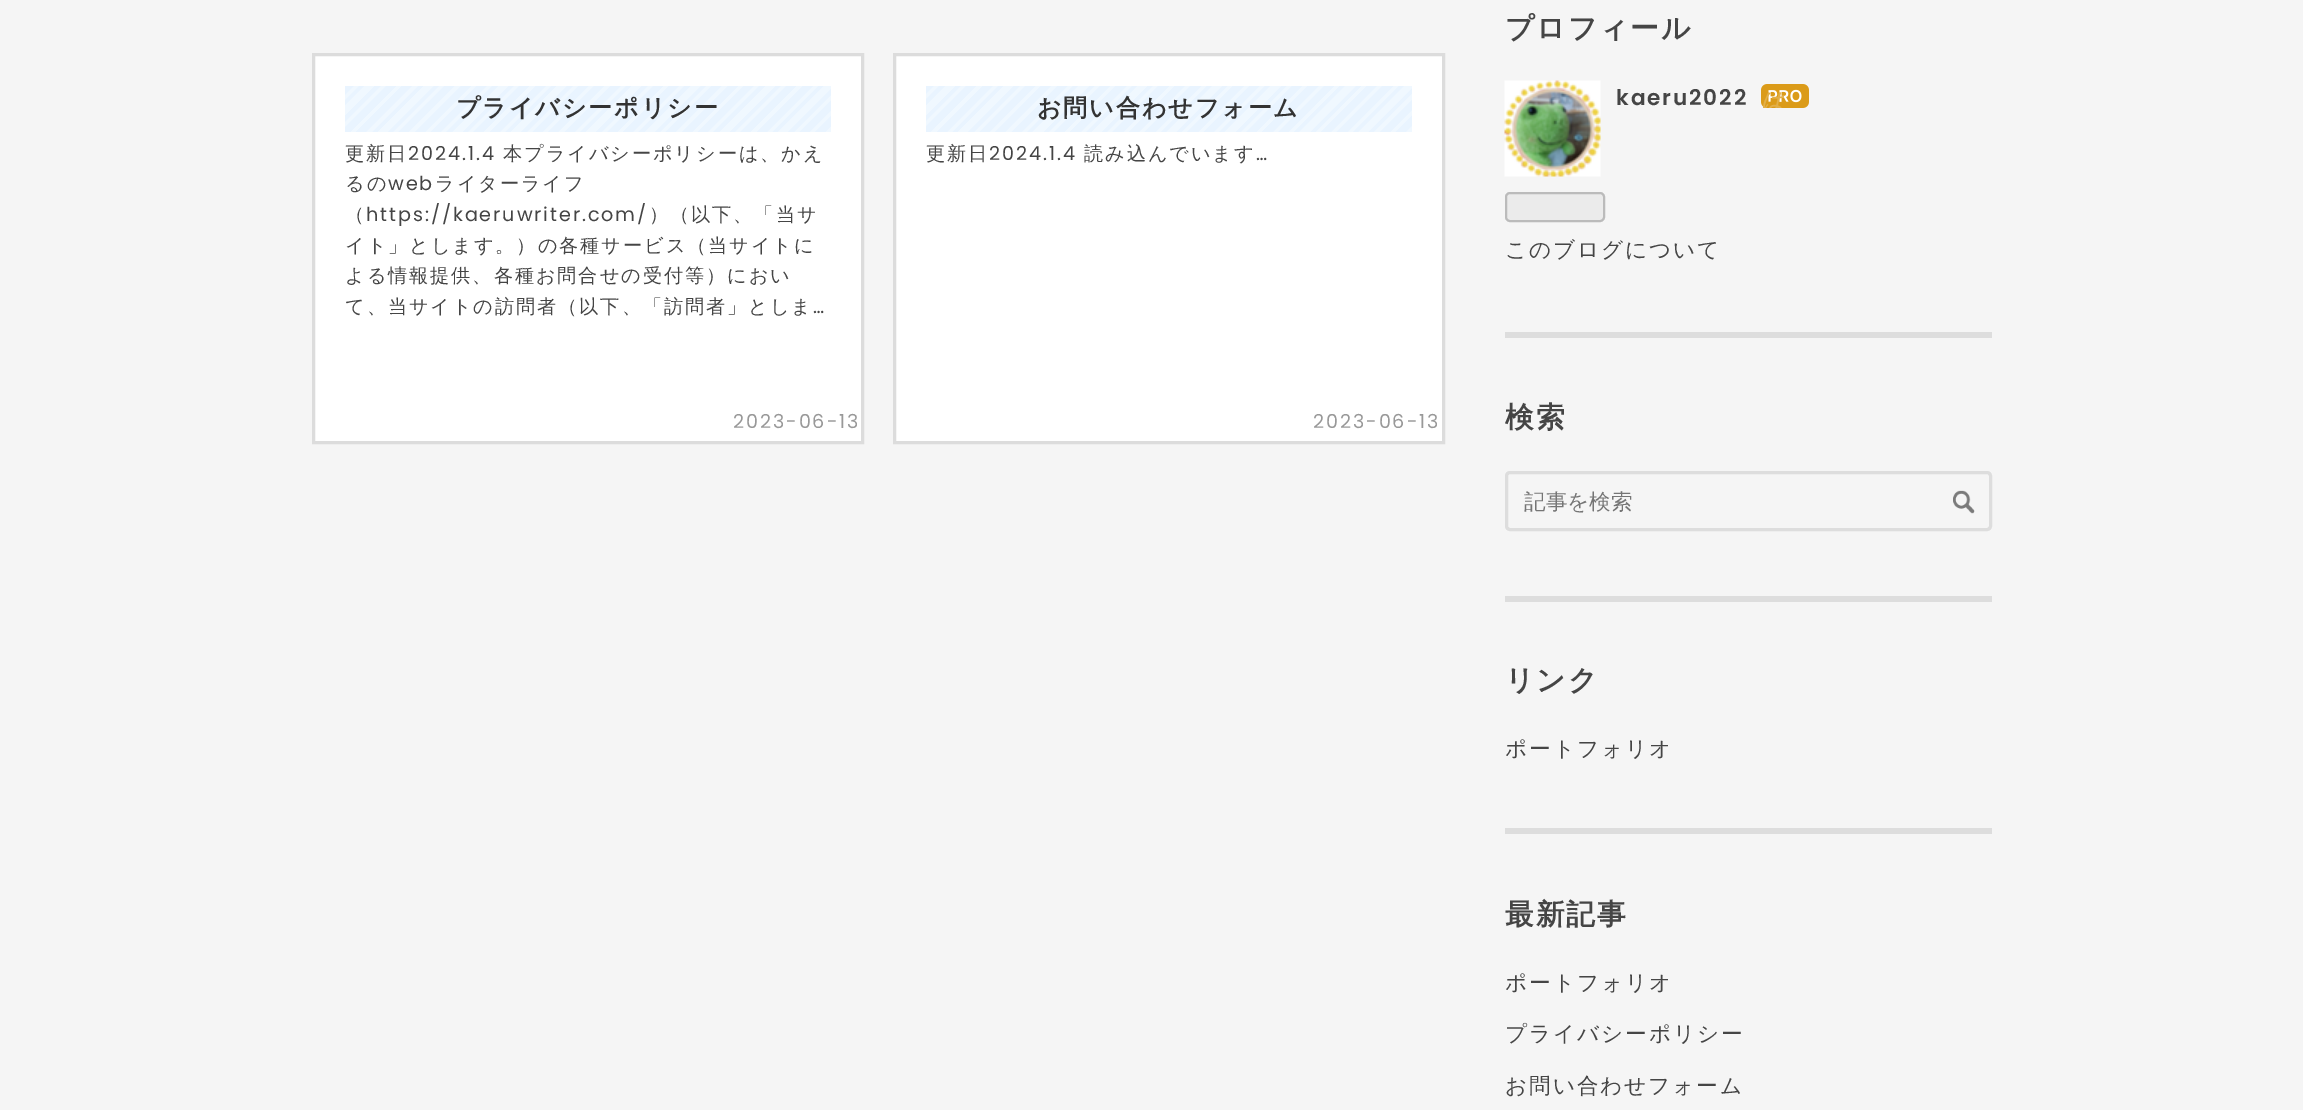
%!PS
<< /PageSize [2303 1110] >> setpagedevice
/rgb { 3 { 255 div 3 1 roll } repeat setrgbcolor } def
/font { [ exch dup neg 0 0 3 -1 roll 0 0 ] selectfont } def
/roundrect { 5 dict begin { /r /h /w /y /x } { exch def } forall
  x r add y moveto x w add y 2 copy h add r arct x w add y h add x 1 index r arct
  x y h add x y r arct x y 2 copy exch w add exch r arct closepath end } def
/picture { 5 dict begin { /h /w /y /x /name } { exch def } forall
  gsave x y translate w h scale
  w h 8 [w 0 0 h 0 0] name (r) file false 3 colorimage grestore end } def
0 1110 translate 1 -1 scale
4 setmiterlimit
245 245 245 rgb
0 0 2303 1110 rectfill
255 255 255 rgb
313.5 54.5 moveto 862.5 54.5 lineto 862.5 442.5 lineto 313.5 442.5 lineto closepath gsave fill grestore
220 220 220 rgb
3 setlinewidth
stroke
gsave 345 86 moveto 831 86 lineto 831 132 lineto 345 132 lineto closepath clip newpath
<< /ShadingType 2 /ColorSpace /DeviceRGB /Coords [721 242 454 -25] /Extend [true true] /Function << /FunctionType 3 /Domain [0 1] /Functions [<< /FunctionType 2 /Domain [0 1] /C0 [0.941 0.973 1] /C1 [0.941 0.973 1] /N 1 >> << /FunctionType 2 /Domain [0 1] /C0 [0.914 0.957 1] /C1 [0.914 0.957 1] /N 1 >> << /FunctionType 2 /Domain [0 1] /C0 [0.941 0.973 1] /C1 [0.941 0.973 1] /N 1 >> << /FunctionType 2 /Domain [0 1] /C0 [0.914 0.957 1] /C1 [0.914 0.957 1] /N 1 >> << /FunctionType 2 /Domain [0 1] /C0 [0.941 0.973 1] /C1 [0.941 0.973 1] /N 1 >> << /FunctionType 2 /Domain [0 1] /C0 [0.914 0.957 1] /C1 [0.914 0.957 1] /N 1 >> << /FunctionType 2 /Domain [0 1] /C0 [0.941 0.973 1] /C1 [0.941 0.973 1] /N 1 >> << /FunctionType 2 /Domain [0 1] /C0 [0.914 0.957 1] /C1 [0.914 0.957 1] /N 1 >> << /FunctionType 2 /Domain [0 1] /C0 [0.941 0.973 1] /C1 [0.941 0.973 1] /N 1 >> << /FunctionType 2 /Domain [0 1] /C0 [0.914 0.957 1] /C1 [0.914 0.957 1] /N 1 >> << /FunctionType 2 /Domain [0 1] /C0 [0.941 0.973 1] /C1 [0.941 0.973 1] /N 1 >> << /FunctionType 2 /Domain [0 1] /C0 [0.914 0.957 1] /C1 [0.914 0.957 1] /N 1 >> << /FunctionType 2 /Domain [0 1] /C0 [0.941 0.973 1] /C1 [0.941 0.973 1] /N 1 >> << /FunctionType 2 /Domain [0 1] /C0 [0.914 0.957 1] /C1 [0.914 0.957 1] /N 1 >> << /FunctionType 2 /Domain [0 1] /C0 [0.941 0.973 1] /C1 [0.941 0.973 1] /N 1 >> << /FunctionType 2 /Domain [0 1] /C0 [0.914 0.957 1] /C1 [0.914 0.957 1] /N 1 >> << /FunctionType 2 /Domain [0 1] /C0 [0.941 0.973 1] /C1 [0.941 0.973 1] /N 1 >> << /FunctionType 2 /Domain [0 1] /C0 [0.914 0.957 1] /C1 [0.914 0.957 1] /N 1 >> << /FunctionType 2 /Domain [0 1] /C0 [0.941 0.973 1] /C1 [0.941 0.973 1] /N 1 >> << /FunctionType 2 /Domain [0 1] /C0 [0.914 0.957 1] /C1 [0.914 0.957 1] /N 1 >> << /FunctionType 2 /Domain [0 1] /C0 [0.941 0.973 1] /C1 [0.941 0.973 1] /N 1 >> << /FunctionType 2 /Domain [0 1] /C0 [0.914 0.957 1] /C1 [0.914 0.957 1] /N 1 >> << /FunctionType 2 /Domain [0 1] /C0 [0.941 0.973 1] /C1 [0.941 0.973 1] /N 1 >> << /FunctionType 2 /Domain [0 1] /C0 [0.914 0.957 1] /C1 [0.914 0.957 1] /N 1 >> << /FunctionType 2 /Domain [0 1] /C0 [0.941 0.973 1] /C1 [0.941 0.973 1] /N 1 >> << /FunctionType 2 /Domain [0 1] /C0 [0.914 0.957 1] /C1 [0.914 0.957 1] /N 1 >> << /FunctionType 2 /Domain [0 1] /C0 [0.941 0.973 1] /C1 [0.941 0.973 1] /N 1 >> << /FunctionType 2 /Domain [0 1] /C0 [0.914 0.957 1] /C1 [0.914 0.957 1] /N 1 >> << /FunctionType 2 /Domain [0 1] /C0 [0.941 0.973 1] /C1 [0.941 0.973 1] /N 1 >> << /FunctionType 2 /Domain [0 1] /C0 [0.914 0.957 1] /C1 [0.914 0.957 1] /N 1 >> << /FunctionType 2 /Domain [0 1] /C0 [0.941 0.973 1] /C1 [0.941 0.973 1] /N 1 >> << /FunctionType 2 /Domain [0 1] /C0 [0.914 0.957 1] /C1 [0.914 0.957 1] /N 1 >> << /FunctionType 2 /Domain [0 1] /C0 [0.941 0.973 1] /C1 [0.941 0.973 1] /N 1 >> << /FunctionType 2 /Domain [0 1] /C0 [0.914 0.957 1] /C1 [0.914 0.957 1] /N 1 >> << /FunctionType 2 /Domain [0 1] /C0 [0.941 0.973 1] /C1 [0.941 0.973 1] /N 1 >> << /FunctionType 2 /Domain [0 1] /C0 [0.914 0.957 1] /C1 [0.914 0.957 1] /N 1 >> << /FunctionType 2 /Domain [0 1] /C0 [0.941 0.973 1] /C1 [0.941 0.973 1] /N 1 >> << /FunctionType 2 /Domain [0 1] /C0 [0.914 0.957 1] /C1 [0.914 0.957 1] /N 1 >> << /FunctionType 2 /Domain [0 1] /C0 [0.941 0.973 1] /C1 [0.941 0.973 1] /N 1 >> << /FunctionType 2 /Domain [0 1] /C0 [0.914 0.957 1] /C1 [0.914 0.957 1] /N 1 >> << /FunctionType 2 /Domain [0 1] /C0 [0.941 0.973 1] /C1 [0.941 0.973 1] /N 1 >> << /FunctionType 2 /Domain [0 1] /C0 [0.914 0.957 1] /C1 [0.914 0.957 1] /N 1 >> << /FunctionType 2 /Domain [0 1] /C0 [0.941 0.973 1] /C1 [0.941 0.973 1] /N 1 >> << /FunctionType 2 /Domain [0 1] /C0 [0.914 0.957 1] /C1 [0.914 0.957 1] /N 1 >> << /FunctionType 2 /Domain [0 1] /C0 [0.941 0.973 1] /C1 [0.941 0.973 1] /N 1 >> << /FunctionType 2 /Domain [0 1] /C0 [0.914 0.957 1] /C1 [0.914 0.957 1] /N 1 >> << /FunctionType 2 /Domain [0 1] /C0 [0.941 0.973 1] /C1 [0.941 0.973 1] /N 1 >> << /FunctionType 2 /Domain [0 1] /C0 [0.914 0.957 1] /C1 [0.914 0.957 1] /N 1 >> << /FunctionType 2 /Domain [0 1] /C0 [0.941 0.973 1] /C1 [0.941 0.973 1] /N 1 >> << /FunctionType 2 /Domain [0 1] /C0 [0.914 0.957 1] /C1 [0.914 0.957 1] /N 1 >> << /FunctionType 2 /Domain [0 1] /C0 [0.941 0.973 1] /C1 [0.941 0.973 1] /N 1 >> << /FunctionType 2 /Domain [0 1] /C0 [0.914 0.957 1] /C1 [0.914 0.957 1] /N 1 >> << /FunctionType 2 /Domain [0 1] /C0 [0.941 0.973 1] /C1 [0.941 0.973 1] /N 1 >> << /FunctionType 2 /Domain [0 1] /C0 [0.914 0.957 1] /C1 [0.914 0.957 1] /N 1 >> << /FunctionType 2 /Domain [0 1] /C0 [0.941 0.973 1] /C1 [0.941 0.973 1] /N 1 >> << /FunctionType 2 /Domain [0 1] /C0 [0.914 0.957 1] /C1 [0.914 0.957 1] /N 1 >> << /FunctionType 2 /Domain [0 1] /C0 [0.941 0.973 1] /C1 [0.941 0.973 1] /N 1 >> << /FunctionType 2 /Domain [0 1] /C0 [0.914 0.957 1] /C1 [0.914 0.957 1] /N 1 >> << /FunctionType 2 /Domain [0 1] /C0 [0.941 0.973 1] /C1 [0.941 0.973 1] /N 1 >> << /FunctionType 2 /Domain [0 1] /C0 [0.914 0.957 1] /C1 [0.914 0.957 1] /N 1 >> << /FunctionType 2 /Domain [0 1] /C0 [0.941 0.973 1] /C1 [0.941 0.973 1] /N 1 >> << /FunctionType 2 /Domain [0 1] /C0 [0.914 0.957 1] /C1 [0.914 0.957 1] /N 1 >> << /FunctionType 2 /Domain [0 1] /C0 [0.941 0.973 1] /C1 [0.941 0.973 1] /N 1 >> << /FunctionType 2 /Domain [0 1] /C0 [0.914 0.957 1] /C1 [0.914 0.957 1] /N 1 >> << /FunctionType 2 /Domain [0 1] /C0 [0.941 0.973 1] /C1 [0.941 0.973 1] /N 1 >> << /FunctionType 2 /Domain [0 1] /C0 [0.914 0.957 1] /C1 [0.914 0.957 1] /N 1 >> << /FunctionType 2 /Domain [0 1] /C0 [0.941 0.973 1] /C1 [0.941 0.973 1] /N 1 >> << /FunctionType 2 /Domain [0 1] /C0 [0.914 0.957 1] /C1 [0.914 0.957 1] /N 1 >> << /FunctionType 2 /Domain [0 1] /C0 [0.941 0.973 1] /C1 [0.941 0.973 1] /N 1 >> << /FunctionType 2 /Domain [0 1] /C0 [0.914 0.957 1] /C1 [0.914 0.957 1] /N 1 >> << /FunctionType 2 /Domain [0 1] /C0 [0.941 0.973 1] /C1 [0.941 0.973 1] /N 1 >> << /FunctionType 2 /Domain [0 1] /C0 [0.914 0.957 1] /C1 [0.914 0.957 1] /N 1 >>] /Bounds [0.01 0.03 0.04 0.06 0.07 0.08 0.1 0.11 0.12 0.14 0.15 0.17 0.18 0.19 0.21 0.22 0.23 0.25 0.26 0.28 0.29 0.31 0.32 0.33 0.35 0.36 0.37 0.39 0.4 0.42 0.43 0.44 0.46 0.47 0.48 0.5 0.51 0.53 0.54 0.56 0.57 0.58 0.6 0.61 0.62 0.64 0.65 0.67 0.68 0.69 0.71 0.72 0.73 0.75 0.76 0.78 0.79 0.81 0.82 0.83 0.85 0.86 0.87 0.89 0.9 0.92 0.93 0.94 0.96 0.97 0.98] /Encode [0 1 0 1 0 1 0 1 0 1 0 1 0 1 0 1 0 1 0 1 0 1 0 1 0 1 0 1 0 1 0 1 0 1 0 1 0 1 0 1 0 1 0 1 0 1 0 1 0 1 0 1 0 1 0 1 0 1 0 1 0 1 0 1 0 1 0 1 0 1 0 1 0 1 0 1 0 1 0 1 0 1 0 1 0 1 0 1 0 1 0 1 0 1 0 1 0 1 0 1 0 1 0 1 0 1 0 1 0 1 0 1 0 1 0 1 0 1 0 1 0 1 0 1 0 1 0 1 0 1 0 1 0 1 0 1 0 1 0 1 0 1 0 1] >> >> shfill grestore
255 255 255 rgb
894.5 54.5 moveto 1443.5 54.5 lineto 1443.5 442.5 lineto 894.5 442.5 lineto closepath gsave fill grestore
220 220 220 rgb
stroke
gsave 926 86 moveto 1412 86 lineto 1412 132 lineto 926 132 lineto closepath clip newpath
<< /ShadingType 2 /ColorSpace /DeviceRGB /Coords [1302 242 1034 -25] /Extend [true true] /Function << /FunctionType 3 /Domain [0 1] /Functions [<< /FunctionType 2 /Domain [0 1] /C0 [0.941 0.973 1] /C1 [0.941 0.973 1] /N 1 >> << /FunctionType 2 /Domain [0 1] /C0 [0.914 0.957 1] /C1 [0.914 0.957 1] /N 1 >> << /FunctionType 2 /Domain [0 1] /C0 [0.941 0.973 1] /C1 [0.941 0.973 1] /N 1 >> << /FunctionType 2 /Domain [0 1] /C0 [0.914 0.957 1] /C1 [0.914 0.957 1] /N 1 >> << /FunctionType 2 /Domain [0 1] /C0 [0.941 0.973 1] /C1 [0.941 0.973 1] /N 1 >> << /FunctionType 2 /Domain [0 1] /C0 [0.914 0.957 1] /C1 [0.914 0.957 1] /N 1 >> << /FunctionType 2 /Domain [0 1] /C0 [0.941 0.973 1] /C1 [0.941 0.973 1] /N 1 >> << /FunctionType 2 /Domain [0 1] /C0 [0.914 0.957 1] /C1 [0.914 0.957 1] /N 1 >> << /FunctionType 2 /Domain [0 1] /C0 [0.941 0.973 1] /C1 [0.941 0.973 1] /N 1 >> << /FunctionType 2 /Domain [0 1] /C0 [0.914 0.957 1] /C1 [0.914 0.957 1] /N 1 >> << /FunctionType 2 /Domain [0 1] /C0 [0.941 0.973 1] /C1 [0.941 0.973 1] /N 1 >> << /FunctionType 2 /Domain [0 1] /C0 [0.914 0.957 1] /C1 [0.914 0.957 1] /N 1 >> << /FunctionType 2 /Domain [0 1] /C0 [0.941 0.973 1] /C1 [0.941 0.973 1] /N 1 >> << /FunctionType 2 /Domain [0 1] /C0 [0.914 0.957 1] /C1 [0.914 0.957 1] /N 1 >> << /FunctionType 2 /Domain [0 1] /C0 [0.941 0.973 1] /C1 [0.941 0.973 1] /N 1 >> << /FunctionType 2 /Domain [0 1] /C0 [0.914 0.957 1] /C1 [0.914 0.957 1] /N 1 >> << /FunctionType 2 /Domain [0 1] /C0 [0.941 0.973 1] /C1 [0.941 0.973 1] /N 1 >> << /FunctionType 2 /Domain [0 1] /C0 [0.914 0.957 1] /C1 [0.914 0.957 1] /N 1 >> << /FunctionType 2 /Domain [0 1] /C0 [0.941 0.973 1] /C1 [0.941 0.973 1] /N 1 >> << /FunctionType 2 /Domain [0 1] /C0 [0.914 0.957 1] /C1 [0.914 0.957 1] /N 1 >> << /FunctionType 2 /Domain [0 1] /C0 [0.941 0.973 1] /C1 [0.941 0.973 1] /N 1 >> << /FunctionType 2 /Domain [0 1] /C0 [0.914 0.957 1] /C1 [0.914 0.957 1] /N 1 >> << /FunctionType 2 /Domain [0 1] /C0 [0.941 0.973 1] /C1 [0.941 0.973 1] /N 1 >> << /FunctionType 2 /Domain [0 1] /C0 [0.914 0.957 1] /C1 [0.914 0.957 1] /N 1 >> << /FunctionType 2 /Domain [0 1] /C0 [0.941 0.973 1] /C1 [0.941 0.973 1] /N 1 >> << /FunctionType 2 /Domain [0 1] /C0 [0.914 0.957 1] /C1 [0.914 0.957 1] /N 1 >> << /FunctionType 2 /Domain [0 1] /C0 [0.941 0.973 1] /C1 [0.941 0.973 1] /N 1 >> << /FunctionType 2 /Domain [0 1] /C0 [0.914 0.957 1] /C1 [0.914 0.957 1] /N 1 >> << /FunctionType 2 /Domain [0 1] /C0 [0.941 0.973 1] /C1 [0.941 0.973 1] /N 1 >> << /FunctionType 2 /Domain [0 1] /C0 [0.914 0.957 1] /C1 [0.914 0.957 1] /N 1 >> << /FunctionType 2 /Domain [0 1] /C0 [0.941 0.973 1] /C1 [0.941 0.973 1] /N 1 >> << /FunctionType 2 /Domain [0 1] /C0 [0.914 0.957 1] /C1 [0.914 0.957 1] /N 1 >> << /FunctionType 2 /Domain [0 1] /C0 [0.941 0.973 1] /C1 [0.941 0.973 1] /N 1 >> << /FunctionType 2 /Domain [0 1] /C0 [0.914 0.957 1] /C1 [0.914 0.957 1] /N 1 >> << /FunctionType 2 /Domain [0 1] /C0 [0.941 0.973 1] /C1 [0.941 0.973 1] /N 1 >> << /FunctionType 2 /Domain [0 1] /C0 [0.914 0.957 1] /C1 [0.914 0.957 1] /N 1 >> << /FunctionType 2 /Domain [0 1] /C0 [0.941 0.973 1] /C1 [0.941 0.973 1] /N 1 >> << /FunctionType 2 /Domain [0 1] /C0 [0.914 0.957 1] /C1 [0.914 0.957 1] /N 1 >> << /FunctionType 2 /Domain [0 1] /C0 [0.941 0.973 1] /C1 [0.941 0.973 1] /N 1 >> << /FunctionType 2 /Domain [0 1] /C0 [0.914 0.957 1] /C1 [0.914 0.957 1] /N 1 >> << /FunctionType 2 /Domain [0 1] /C0 [0.941 0.973 1] /C1 [0.941 0.973 1] /N 1 >> << /FunctionType 2 /Domain [0 1] /C0 [0.914 0.957 1] /C1 [0.914 0.957 1] /N 1 >> << /FunctionType 2 /Domain [0 1] /C0 [0.941 0.973 1] /C1 [0.941 0.973 1] /N 1 >> << /FunctionType 2 /Domain [0 1] /C0 [0.914 0.957 1] /C1 [0.914 0.957 1] /N 1 >> << /FunctionType 2 /Domain [0 1] /C0 [0.941 0.973 1] /C1 [0.941 0.973 1] /N 1 >> << /FunctionType 2 /Domain [0 1] /C0 [0.914 0.957 1] /C1 [0.914 0.957 1] /N 1 >> << /FunctionType 2 /Domain [0 1] /C0 [0.941 0.973 1] /C1 [0.941 0.973 1] /N 1 >> << /FunctionType 2 /Domain [0 1] /C0 [0.914 0.957 1] /C1 [0.914 0.957 1] /N 1 >> << /FunctionType 2 /Domain [0 1] /C0 [0.941 0.973 1] /C1 [0.941 0.973 1] /N 1 >> << /FunctionType 2 /Domain [0 1] /C0 [0.914 0.957 1] /C1 [0.914 0.957 1] /N 1 >> << /FunctionType 2 /Domain [0 1] /C0 [0.941 0.973 1] /C1 [0.941 0.973 1] /N 1 >> << /FunctionType 2 /Domain [0 1] /C0 [0.914 0.957 1] /C1 [0.914 0.957 1] /N 1 >> << /FunctionType 2 /Domain [0 1] /C0 [0.941 0.973 1] /C1 [0.941 0.973 1] /N 1 >> << /FunctionType 2 /Domain [0 1] /C0 [0.914 0.957 1] /C1 [0.914 0.957 1] /N 1 >> << /FunctionType 2 /Domain [0 1] /C0 [0.941 0.973 1] /C1 [0.941 0.973 1] /N 1 >> << /FunctionType 2 /Domain [0 1] /C0 [0.914 0.957 1] /C1 [0.914 0.957 1] /N 1 >> << /FunctionType 2 /Domain [0 1] /C0 [0.941 0.973 1] /C1 [0.941 0.973 1] /N 1 >> << /FunctionType 2 /Domain [0 1] /C0 [0.914 0.957 1] /C1 [0.914 0.957 1] /N 1 >> << /FunctionType 2 /Domain [0 1] /C0 [0.941 0.973 1] /C1 [0.941 0.973 1] /N 1 >> << /FunctionType 2 /Domain [0 1] /C0 [0.914 0.957 1] /C1 [0.914 0.957 1] /N 1 >> << /FunctionType 2 /Domain [0 1] /C0 [0.941 0.973 1] /C1 [0.941 0.973 1] /N 1 >> << /FunctionType 2 /Domain [0 1] /C0 [0.914 0.957 1] /C1 [0.914 0.957 1] /N 1 >> << /FunctionType 2 /Domain [0 1] /C0 [0.941 0.973 1] /C1 [0.941 0.973 1] /N 1 >> << /FunctionType 2 /Domain [0 1] /C0 [0.914 0.957 1] /C1 [0.914 0.957 1] /N 1 >> << /FunctionType 2 /Domain [0 1] /C0 [0.941 0.973 1] /C1 [0.941 0.973 1] /N 1 >> << /FunctionType 2 /Domain [0 1] /C0 [0.914 0.957 1] /C1 [0.914 0.957 1] /N 1 >> << /FunctionType 2 /Domain [0 1] /C0 [0.941 0.973 1] /C1 [0.941 0.973 1] /N 1 >> << /FunctionType 2 /Domain [0 1] /C0 [0.914 0.957 1] /C1 [0.914 0.957 1] /N 1 >> << /FunctionType 2 /Domain [0 1] /C0 [0.941 0.973 1] /C1 [0.941 0.973 1] /N 1 >> << /FunctionType 2 /Domain [0 1] /C0 [0.914 0.957 1] /C1 [0.914 0.957 1] /N 1 >> << /FunctionType 2 /Domain [0 1] /C0 [0.941 0.973 1] /C1 [0.941 0.973 1] /N 1 >> << /FunctionType 2 /Domain [0 1] /C0 [0.914 0.957 1] /C1 [0.914 0.957 1] /N 1 >>] /Bounds [0.01 0.03 0.04 0.06 0.07 0.08 0.1 0.11 0.12 0.14 0.15 0.17 0.18 0.19 0.21 0.22 0.23 0.25 0.26 0.28 0.29 0.31 0.32 0.33 0.35 0.36 0.37 0.39 0.4 0.42 0.43 0.44 0.46 0.47 0.48 0.5 0.51 0.53 0.54 0.56 0.57 0.58 0.6 0.61 0.62 0.64 0.65 0.67 0.68 0.69 0.71 0.72 0.73 0.75 0.76 0.78 0.79 0.81 0.82 0.83 0.85 0.86 0.87 0.89 0.9 0.92 0.93 0.94 0.96 0.97 0.98] /Encode [0 1 0 1 0 1 0 1 0 1 0 1 0 1 0 1 0 1 0 1 0 1 0 1 0 1 0 1 0 1 0 1 0 1 0 1 0 1 0 1 0 1 0 1 0 1 0 1 0 1 0 1 0 1 0 1 0 1 0 1 0 1 0 1 0 1 0 1 0 1 0 1 0 1 0 1 0 1 0 1 0 1 0 1 0 1 0 1 0 1 0 1 0 1 0 1 0 1 0 1 0 1 0 1 0 1 0 1 0 1 0 1 0 1 0 1 0 1 0 1 0 1 0 1 0 1 0 1 0 1 0 1 0 1 0 1 0 1 0 1 0 1 0 1] >> >> shfill grestore
(img/1.rgb) 1504 80 97 97 picture
(img/2.rgb) 1761 84 48 24 picture
235 235 235 rgb
1506 193 98 28 4 roundrect gsave fill grestore
187 187 187 rgb
2 setlinewidth
stroke
221 221 221 rgb
1505 332 487 6 rectfill
3 setlinewidth
1506.5 472.5 484 57 3.5 roundrect stroke
(img/3.rgb) 1953 490 22 24 picture
1505 596 487 6 rectfill
1505 828 487 6 rectfill
/WenQuanYiZenHei-Bold 24 font
51 51 51 rgb
456 116 moveto 1.9 0 (プライバシーポリシー) ashow
/Poppins-Regular 19.2 font
153 153 153 rgb
733 428 moveto 1.9 0 (2023-06-13) ashow
/WenQuanYiZenHei-Medium 19.2 font
69 69 69 rgb
345 160 moveto 1.9 0 (更新日) ashow
/Poppins-Regular 19.2 font
408 160 moveto 1.9 0 (2024.1.4) ashow
/WenQuanYiZenHei-Medium 19.2 font
503 160 moveto 1.9 0 (本プライバシーポリシーは、かえ) ashow
345 190 moveto 1.9 0 (るの) ashow
/Poppins-Regular 19.2 font
388 190 moveto 1.9 0 (web) ashow
/WenQuanYiZenHei-Medium 19.2 font
435 190 moveto 1.9 0 (ライターライフ) ashow
345 221 moveto 1.9 0 (（) ashow
/Poppins-Regular 19.2 font
366 221 moveto 1.9 0 (https://kaeruwriter.com/) ashow
/WenQuanYiZenHei-Medium 19.2 font
649 221 moveto 1.9 0 (）（以下、「当サ) ashow
345 252 moveto 1.9 0 (イト」とします。）の各種サービス（当サイトに) ashow
345 282 moveto 1.9 0 (よる情報提供、各種お問合せの受付等）におい) ashow
345 313 moveto 1.9 0 (て、当サイトの訪問者（以下、「訪問者」としま) ashow
/Poppins-Regular 19.2 font
813 313 moveto 1.9 0 (…) ashow
/WenQuanYiZenHei-Bold 24 font
51 51 51 rgb
1037 116 moveto 1.9 0 (お問い合わせフォーム) ashow
/Poppins-Regular 19.2 font
153 153 153 rgb
1313 428 moveto 1.9 0 (2023-06-13) ashow
/WenQuanYiZenHei-Medium 19.2 font
69 69 69 rgb
926 160 moveto 1.9 0 (更新日) ashow
/Poppins-Regular 19.2 font
989 160 moveto 1.9 0 (2024.1.4) ashow
/WenQuanYiZenHei-Medium 19.2 font
1084 160 moveto 1.9 0 (読み込んでいます) ashow
/Poppins-Regular 19.2 font
1256 160 moveto 1.9 0 (…) ashow
/WenQuanYiZenHei-Bold 28.75 font
1505 38 moveto 1.9 0 (プロフィール) ashow
/Poppins-SemiBold 21.6 font
1616 105 moveto 1.9 0 (kaeru2022) ashow
gsave
1761 84 48 24 rectclip
/WenQuanYiZenHei-BoldItalic 21.6 font
226 175 72 rgb
1761 108 moveto 1.9 0 (は) ashow
grestore
/WenQuanYiZenHei-Medium 21.6 font
1505 257 moveto 1.9 0 (このブログについて) ashow
/WenQuanYiZenHei-Bold 28.75 font
1505 427 moveto 1.9 0 (検索) ashow
/WenQuanYiZenHei-Medium 21.6 font
117 117 117 rgb
1524 509 moveto (記事を検索) show
/WenQuanYiZenHei-Bold 28.75 font
69 69 69 rgb
1505 690 moveto 1.9 0 (リンク) ashow
/WenQuanYiZenHei-Medium 21.6 font
1505 756 moveto 1.9 0 (ポートフォリオ) ashow
/WenQuanYiZenHei-Bold 28.75 font
1505 924 moveto 1.9 0 (最新記事) ashow
/WenQuanYiZenHei-Medium 21.6 font
1505 990 moveto 1.9 0 (ポートフォリオ) ashow
1505 1041 moveto 1.9 0 (プライバシーポリシー) ashow
1505 1093 moveto 1.9 0 (お問い合わせフォーム) ashow
showpage
